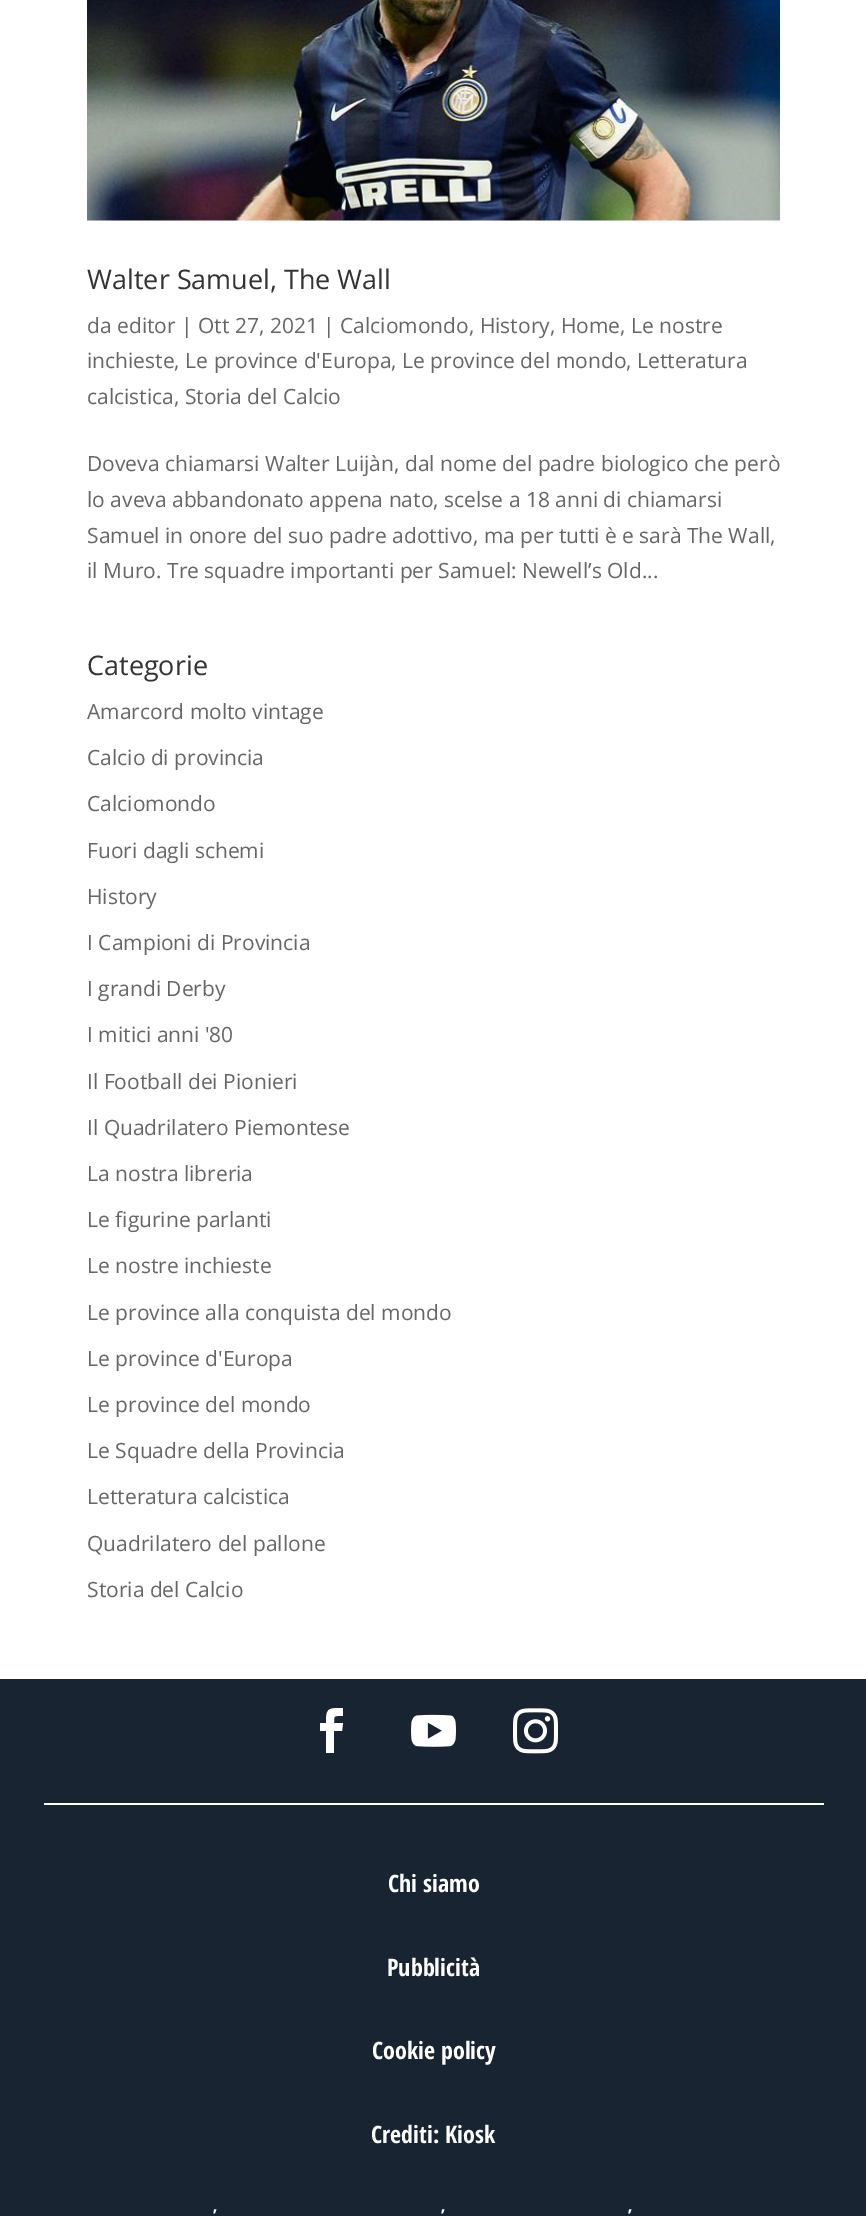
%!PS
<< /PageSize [866 2216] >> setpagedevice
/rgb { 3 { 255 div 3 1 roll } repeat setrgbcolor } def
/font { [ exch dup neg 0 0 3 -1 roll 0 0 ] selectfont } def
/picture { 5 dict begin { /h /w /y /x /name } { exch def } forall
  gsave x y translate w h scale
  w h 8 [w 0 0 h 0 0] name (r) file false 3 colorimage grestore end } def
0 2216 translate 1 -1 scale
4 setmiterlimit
255 255 255 rgb
0 0 866 2216 rectfill
(img/1.rgb) 87 0 693 221 picture
24 36 49 rgb
0 1679 866 537 rectfill
255 255 255 rgb
326 1753 moveto 334 1753 lineto 334 1731 lineto 342 1731 lineto 343 1723 lineto 334 1723 lineto 334 1715 334 1716 343 1716 curveto 343 1708 lineto 328 1708 326 1708 326 1723 curveto 320 1723 lineto 320 1731 lineto 326 1731 lineto closepath fill
(img/2.rgb) 411 1714 45 33 picture
(img/3.rgb) 513 1708 45 46 picture
44 1803 780 2 rectfill
/OpenSans-Regular 27 font
51 51 51 rgb
87 289 moveto (Walter Samuel, The Wall) show
/OpenSans-Regular 21 font
102 102 102 rgb
[
  [(da editor | Ott 27, 2021 | Calciomondo, History, Home, Le nostre) 87 333]
  [(inchieste, Le province d'Europa, Le province del mondo, Letteratura) 87 368]
  [(calcistica, Storia del Calcio) 87 404]
  [(Doveva chiamarsi Walter Luijàn, dal nome del padre biologico che però) 87 471]
  [(lo aveva abbandonato appena nato, scelse a 18 anni di chiamarsi) 87 507]
  [(Samuel in onore del suo padre adottivo, ma per tutti è e sarà The Wall,) 87 543]
  [(il Muro. Tre squadre importanti per Samuel: Newell’s Old...) 87 578]
] { aload pop moveto show } forall
/OpenSans-Regular 27 font
51 51 51 rgb
87 675 moveto (Categorie) show
/OpenSans-Regular 21 font
102 102 102 rgb
[
  [(Amarcord molto vintage) 87 719]
  [(Calcio di provincia) 87 765]
  [(Calciomondo) 87 811]
  [(Fuori dagli schemi) 87 858]
  [(History) 87 904]
  [(I Campioni di Provincia) 87 950]
  [(I grandi Derby) 87 996]
  [(I mitici anni '80) 87 1042]
  [(Il Football dei Pionieri) 87 1089]
  [(Il Quadrilatero Piemontese) 87 1135]
  [(La nostra libreria) 87 1181]
  [(Le figurine parlanti) 87 1227]
  [(Le nostre inchieste) 87 1273]
  [(Le province alla conquista del mondo) 87 1320]
  [(Le province d'Europa) 87 1366]
  [(Le province del mondo) 87 1412]
  [(Le Squadre della Provincia) 87 1458]
  [(Letteratura calcistica) 87 1504]
  [(Quadrilatero del pallone) 87 1551]
  [(Storia del Calcio) 87 1597]
] { aload pop moveto show } forall
/OpenSansCondensed-Bold 24 font
255 255 255 rgb
[
  [(Chi siamo) 388 1892]
  [(Pubblicità) 387 1976]
  [(Cookie policy) 372 2059]
  [(Crediti: Kiosk) 371 2143]
] { aload pop moveto show } forall
/OpenSansCondensed-Bold 18 font
[
  [(’) 213 2222]
  [(’) 441 2222]
  [(’) 628 2222]
] { aload pop moveto show } forall
showpage
